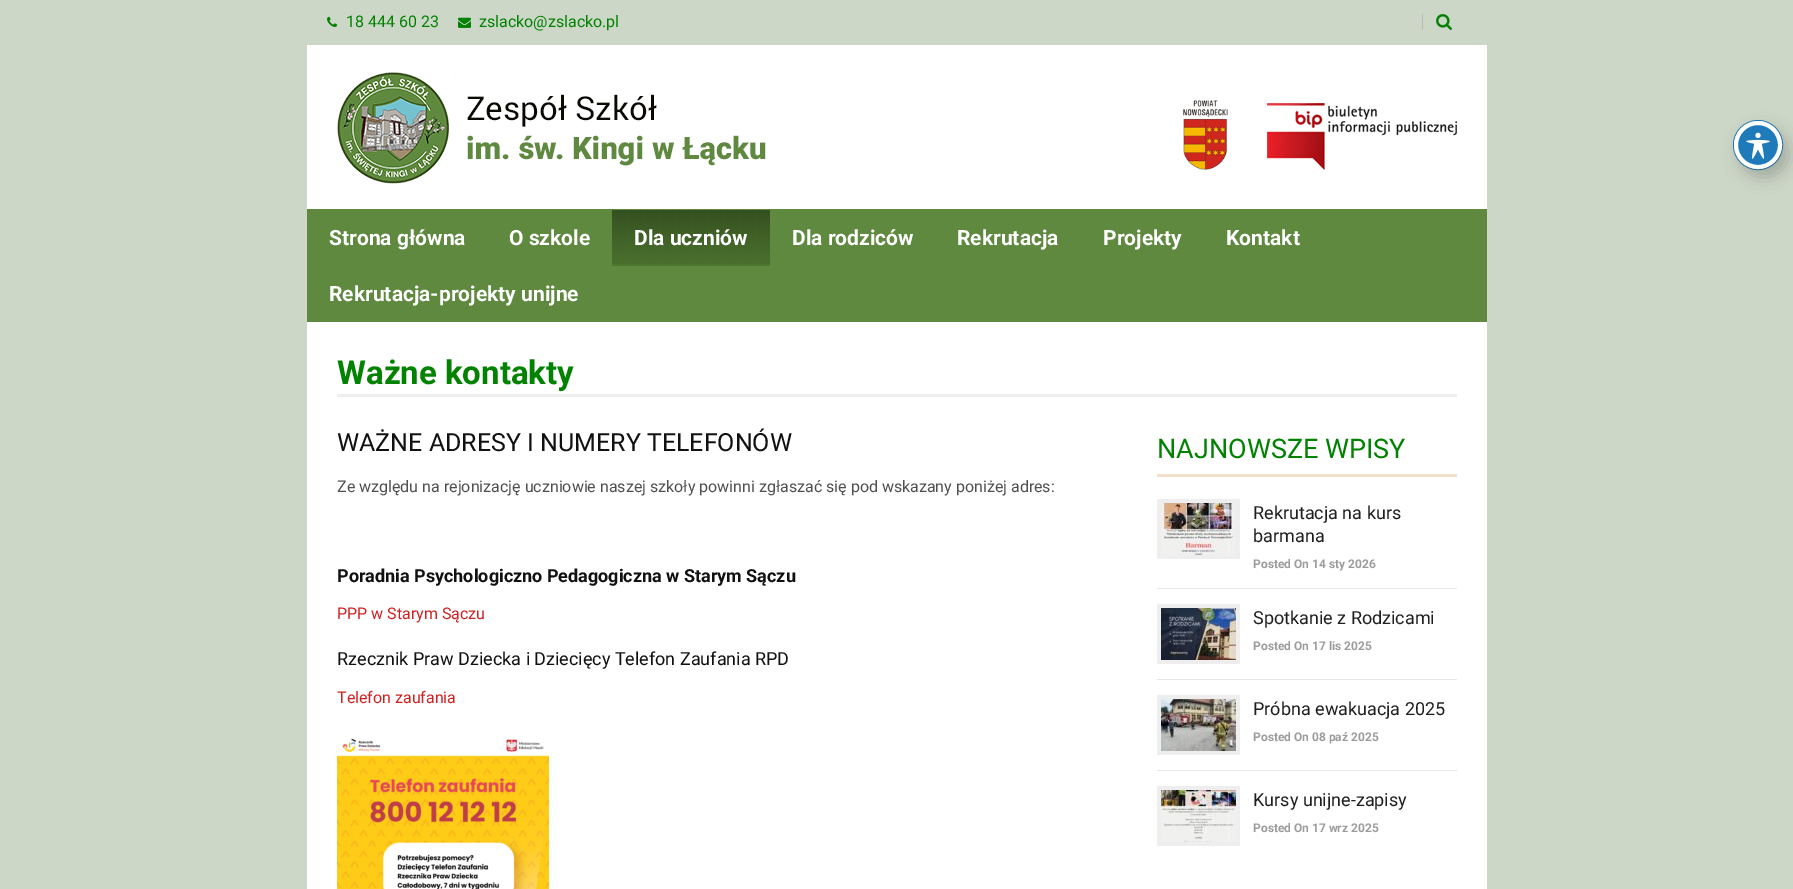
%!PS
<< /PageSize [1793 889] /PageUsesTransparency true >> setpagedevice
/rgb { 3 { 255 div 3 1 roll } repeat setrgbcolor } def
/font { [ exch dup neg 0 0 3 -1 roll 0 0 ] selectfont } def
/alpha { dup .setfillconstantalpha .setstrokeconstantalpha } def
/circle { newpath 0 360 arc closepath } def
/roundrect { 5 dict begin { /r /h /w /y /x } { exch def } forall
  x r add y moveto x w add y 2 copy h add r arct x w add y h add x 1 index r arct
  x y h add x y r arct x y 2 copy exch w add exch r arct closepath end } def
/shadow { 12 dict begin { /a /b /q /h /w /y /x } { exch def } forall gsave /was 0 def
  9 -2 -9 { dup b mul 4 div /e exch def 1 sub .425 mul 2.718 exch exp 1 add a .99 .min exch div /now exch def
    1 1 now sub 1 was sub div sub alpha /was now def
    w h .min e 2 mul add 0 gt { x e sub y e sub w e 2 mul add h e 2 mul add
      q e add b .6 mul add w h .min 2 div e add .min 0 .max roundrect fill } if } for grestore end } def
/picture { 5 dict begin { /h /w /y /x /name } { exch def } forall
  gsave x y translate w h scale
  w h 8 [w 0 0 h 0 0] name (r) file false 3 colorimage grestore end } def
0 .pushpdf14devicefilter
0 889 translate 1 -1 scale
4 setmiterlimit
205 215 200 rgb
0 0 1793 889 rectfill
(img/1.rgb) 327 16 11 11 picture
(img/2.rgb) 458 17 13 11 picture
(img/3.rgb) 1436 14 16 16 picture
186 186 186 rgb
1422 14 1 16 rectfill
255 255 255 rgb
307 45 1180 164 rectfill
(img/4.rgb) 337 72 429 112 picture
(img/5.rgb) 1183 100 45 70 picture
(img/6.rgb) 1267 103 190 67 picture
95 137 63 rgb
307 209 1180 113 rectfill
77 117 47 rgb
612 210 158 56 rectfill
(img/7.rgb) 612 210 158 54 picture
255 255 255 rgb
307 322 1180 567 rectfill
238 238 238 rgb
337 394 1120 3 rectfill
(img/8.rgb) 337 738 212 151 picture
[
  [1157 474 300 3 244 223 203]
  [1157 588 300 1 230 230 230]
  [1157 499 83 60 238 238 238]
] { aload pop rgb rectfill } forall
(img/9.rgb) 1161 503 74 52 picture
230 230 230 rgb
1157 679 300 1 rectfill
238 238 238 rgb
1157 604 83 60 rectfill
(img/10.rgb) 1161 608 75 52 picture
230 230 230 rgb
1157 770 300 1 rectfill
238 238 238 rgb
1157 695 83 60 rectfill
(img/11.rgb) 1161 699 75 52 picture
1157 786 83 60 rectfill
(img/12.rgb) 1161 790 75 52 picture
30 122 185 rgb
1758 145 24.5 circle stroke
0 0 0 rgb
1740 129 48 48 24 8 0.2 shadow
30 122 185 rgb
1758 145 22 circle gsave fill grestore
255 255 255 rgb
4 setlinewidth
stroke
(img/13.rgb) 1746 132 24 27 picture
/Roboto-Regular 16 font
1 130 1 rgb
346 27 moveto (18 444 60 23) show
479 27 moveto (zslacko@zslacko.pl) show
/Roboto-Bold 21 font
255 255 255 rgb
[
  [(Strona główna) 329 245]
  [(O szkole) 509 245]
  [(Dla uczniów) 634 245]
  [(Dla rodziców) 792 245]
  [(Rekrutacja) 957 245]
  [(Projekty) 1103 245]
  [(Kontakt) 1226 245]
  [(Rekrutacja-projekty unijne) 329 301]
] { aload pop moveto show } forall
/Roboto-Bold 33 font
1 130 1 rgb
337 384 moveto (Ważne kontakty) show
/Roboto-Regular 25 font
17 17 17 rgb
337 451 moveto (WAŻNE ADRESY I NUMERY TELEFONÓW) show
/Roboto-Regular 16 font
80 80 80 rgb
337 492 moveto (Ze względu na rejonizację uczniowie naszej szkoły powinni zgłaszać się pod wskazany poniżej adres:) show
/Roboto-Bold 18 font
17 17 17 rgb
337 582 moveto (Poradnia Psychologiczno Pedagogiczna w Starym Sączu) show
/Roboto-Regular 16 font
206 33 33 rgb
337 619 moveto (PPP w Starym Sączu) show
/Roboto-Regular 18 font
17 17 17 rgb
337 665 moveto (Rzecznik Praw Dziecka i Dziecięcy Telefon Zaufania RPD) show
/Roboto-Regular 16 font
206 33 33 rgb
337 703 moveto (Telefon zaufania) show
/Roboto-Regular 27 font
1 130 1 rgb
1157 458 moveto (NAJNOWSZE WPISY) show
/Roboto-Regular 18 font
31 31 31 rgb
1253 519 moveto (Rekrutacja na kurs) show
1253 542 moveto (barmana) show
/Roboto-Bold 12 font
155 155 155 rgb
1253 568 moveto (Posted On 14 sty 2026) show
/Roboto-Regular 18 font
31 31 31 rgb
1253 624 moveto (Spotkanie z Rodzicami) show
/Roboto-Bold 12 font
155 155 155 rgb
1253 650 moveto (Posted On 17 lis 2025) show
/Roboto-Regular 18 font
31 31 31 rgb
1253 715 moveto (Próbna ewakuacja 2025) show
/Roboto-Bold 12 font
155 155 155 rgb
1253 741 moveto (Posted On 08 paź 2025) show
/Roboto-Regular 18 font
31 31 31 rgb
1253 806 moveto (Kursy unijne-zapisy) show
/Roboto-Bold 12 font
155 155 155 rgb
1253 832 moveto (Posted On 17 wrz 2025) show
.poppdf14devicefilter showpage
